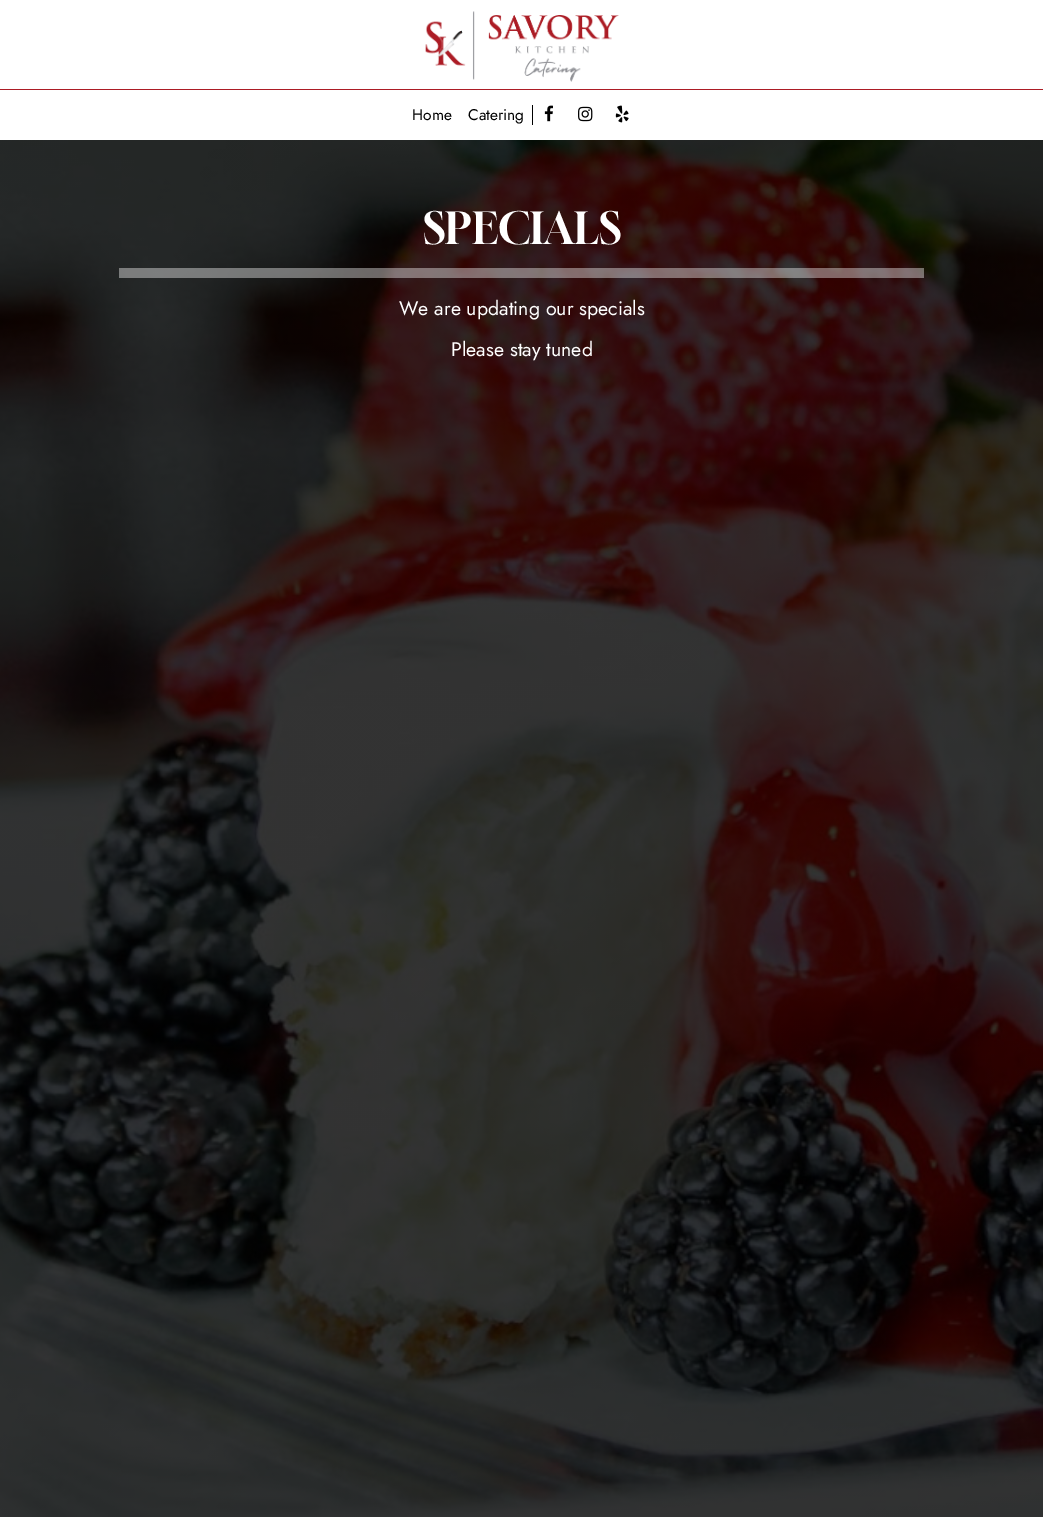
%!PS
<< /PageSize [1043 1517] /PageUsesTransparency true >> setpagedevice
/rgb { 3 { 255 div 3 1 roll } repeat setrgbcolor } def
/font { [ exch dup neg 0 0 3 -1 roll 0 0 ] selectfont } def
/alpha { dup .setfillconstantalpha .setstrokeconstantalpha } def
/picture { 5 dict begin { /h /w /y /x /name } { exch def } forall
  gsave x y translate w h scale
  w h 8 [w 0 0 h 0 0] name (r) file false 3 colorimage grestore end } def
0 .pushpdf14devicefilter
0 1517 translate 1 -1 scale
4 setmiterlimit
255 255 255 rgb
0 0 1043 1517 rectfill
(img/1.rgb) 0 140 1043 1377 picture
172 28 37 rgb
0 89 1043 1 rectfill
(img/2.rgb) 425 11 194 71 picture
0 0 0 rgb
532 105 1 20 rectfill
(img/3.rgb) 544 105 9 17 picture
(img/4.rgb) 578 106 15 16 picture
(img/5.rgb) 615 105 14 18 picture
0.4 alpha
255 255 255 rgb
119 268 805 10 rectfill
/Jost-Regular 15.5 font
1 alpha
0 0 0 rgb
412 120 moveto (Home) show
468 120 moveto (Catering) show
/Gloock-Regular 43.5 font
255 255 255 rgb
423 244 moveto (SPECIALS) show
/Jost-Regular 19.6 font
399 315 moveto (We are updating our specials) show
451 356 moveto (Please stay tuned) show
.poppdf14devicefilter showpage
